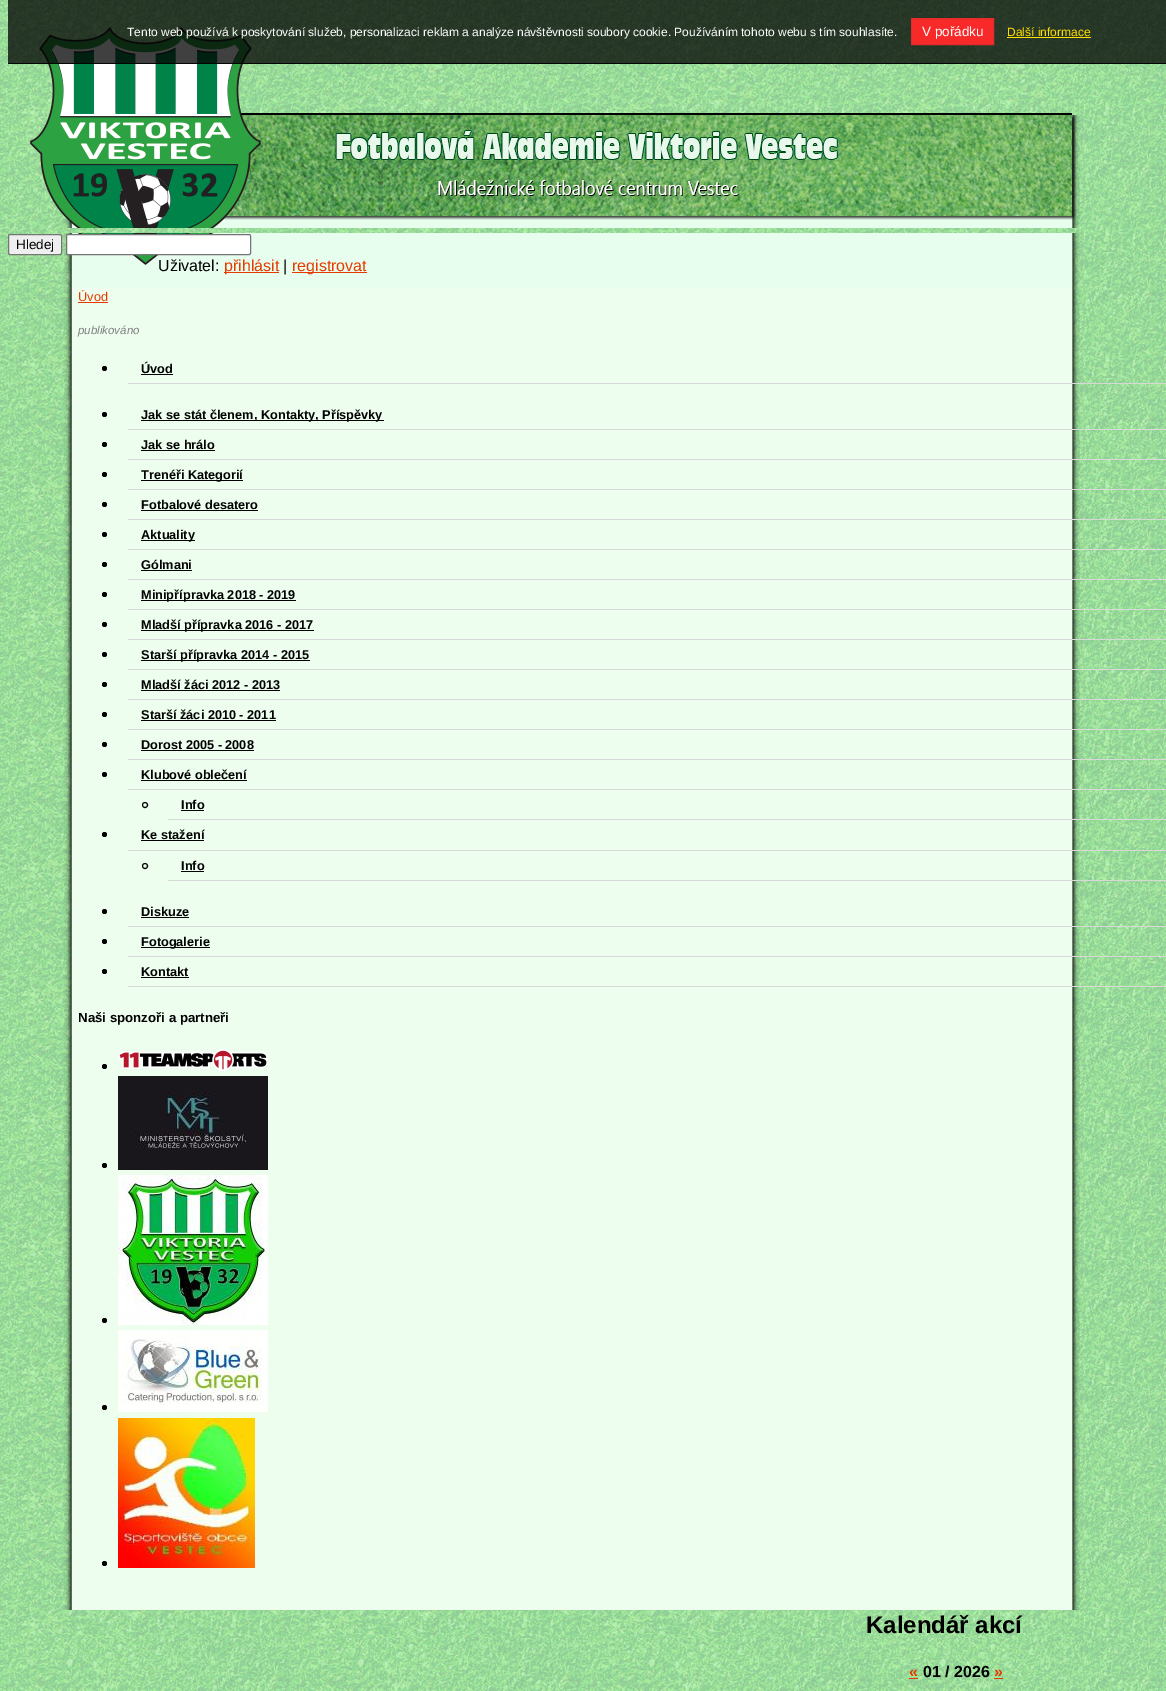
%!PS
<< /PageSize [1166 1691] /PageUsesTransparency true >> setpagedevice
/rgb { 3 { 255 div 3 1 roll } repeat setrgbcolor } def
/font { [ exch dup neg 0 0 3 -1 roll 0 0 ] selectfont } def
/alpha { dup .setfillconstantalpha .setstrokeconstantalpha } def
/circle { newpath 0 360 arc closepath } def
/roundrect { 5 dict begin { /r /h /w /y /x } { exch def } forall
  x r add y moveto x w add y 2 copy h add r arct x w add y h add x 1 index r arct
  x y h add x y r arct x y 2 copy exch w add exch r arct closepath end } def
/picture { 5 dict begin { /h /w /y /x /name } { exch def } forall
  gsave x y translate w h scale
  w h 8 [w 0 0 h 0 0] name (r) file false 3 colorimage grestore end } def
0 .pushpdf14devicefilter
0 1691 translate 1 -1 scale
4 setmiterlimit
255 255 255 rgb
0 0 1166 1691 rectfill
(img/1.rgb) 0 0 1166 1691 picture
(img/2.rgb) 30 27 1050 201 picture
0.75 alpha
0 0 0 rgb
8 0 1158 64 rectfill
0.9 alpha
8 63 1158 1 rectfill
1 alpha
248 41 41 rgb
911.5 18.5 moveto 993.5 18.5 lineto 993.5 44.5 lineto 911.5 44.5 lineto closepath gsave fill grestore
224 44 44 rgb
stroke
255 222 0 rgb
1007 37 84 1 rectfill
(img/3.rgb) 64 233 1016 55 picture
239 239 239 rgb
8.5 234.5 53 20 1.5 roundrect gsave fill grestore
118 118 118 rgb
stroke
255 255 255 rgb
66.5 234.5 184 20 1.5 roundrect gsave fill grestore
118 118 118 rgb
stroke
228 59 0 rgb
224 272 55 1 rectfill
292 272 75 1 rectfill
(img/4.rgb) 64 288 1016 1322 picture
78 302 30 1 rectfill
0 0 0 rgb
104.5 368.5 2.5 circle fill
216 216 216 rgb
128 383 1038 1 rectfill
0 0 0 rgb
141 374 32 1 rectfill
104.5 414.5 2.5 circle fill
216 216 216 rgb
128 429 1038 1 rectfill
0 0 0 rgb
141 420 243 1 rectfill
104.5 444.5 2.5 circle fill
216 216 216 rgb
128 459 1038 1 rectfill
0 0 0 rgb
141 450 74 1 rectfill
104.5 474.5 2.5 circle fill
216 216 216 rgb
128 489 1038 1 rectfill
0 0 0 rgb
141 480 102 1 rectfill
104.5 504.5 2.5 circle fill
216 216 216 rgb
128 519 1038 1 rectfill
0 0 0 rgb
141 510 117 1 rectfill
104.5 534.5 2.5 circle fill
216 216 216 rgb
128 549 1038 1 rectfill
0 0 0 rgb
141 540 54 1 rectfill
104.5 564.5 2.5 circle fill
216 216 216 rgb
128 579 1038 1 rectfill
0 0 0 rgb
141 570 51 1 rectfill
104.5 594.5 2.5 circle fill
216 216 216 rgb
128 609 1038 1 rectfill
0 0 0 rgb
141 600 155 1 rectfill
104.5 624.5 2.5 circle fill
216 216 216 rgb
128 639 1038 1 rectfill
0 0 0 rgb
141 630 173 1 rectfill
104.5 654.5 2.5 circle fill
216 216 216 rgb
128 669 1038 1 rectfill
0 0 0 rgb
141 660 169 1 rectfill
104.5 684.5 2.5 circle fill
216 216 216 rgb
128 699 1038 1 rectfill
0 0 0 rgb
141 690 139 1 rectfill
104.5 714.5 2.5 circle fill
216 216 216 rgb
128 729 1038 1 rectfill
0 0 0 rgb
141 720 135 1 rectfill
104.5 744.5 2.5 circle fill
216 216 216 rgb
128 759 1038 1 rectfill
0 0 0 rgb
141 750 113 1 rectfill
104.5 774.5 2.5 circle fill
216 216 216 rgb
128 789 1038 1 rectfill
0 0 0 rgb
141 780 106 1 rectfill
145 805 2.5 circle stroke
216 216 216 rgb
168 819 998 1 rectfill
0 0 0 rgb
181 810 23 1 rectfill
104.5 834.5 2.5 circle fill
216 216 216 rgb
128 850 1038 1 rectfill
0 0 0 rgb
141 840 63 1 rectfill
145 866 2.5 circle stroke
216 216 216 rgb
168 880 998 1 rectfill
0 0 0 rgb
181 871 23 1 rectfill
104.5 911.5 2.5 circle fill
216 216 216 rgb
128 926 1038 1 rectfill
0 0 0 rgb
141 917 48 1 rectfill
104.5 941.5 2.5 circle fill
216 216 216 rgb
128 956 1038 1 rectfill
0 0 0 rgb
141 947 69 1 rectfill
104.5 971.5 2.5 circle fill
216 216 216 rgb
128 986 1038 1 rectfill
0 0 0 rgb
141 977 48 1 rectfill
104.5 1066.5 2.5 circle fill
(img/5.rgb) 118 1049 150 22 picture
104.5 1165.5 2.5 circle fill
(img/6.rgb) 118 1076 150 94 picture
104.5 1320.5 2.5 circle fill
(img/7.rgb) 118 1175 150 150 picture
104.5 1407.5 2.5 circle fill
(img/8.rgb) 118 1330 150 82 picture
104.5 1563.5 2.5 circle fill
(img/9.rgb) 118 1418 137 150 picture
228 59 0 rgb
909 1678 9 1 rectfill
994 1678 9 1 rectfill
/LiberationSans-Regular 12 font
255 255 255 rgb
127 36 moveto (Tento web používá k poskytování služeb, personalizaci reklam a analýze návštěvnosti soubory cookie. Používáním tohoto webu s tím souhlasíte.) show
/LiberationSans-Regular 13.5 font
922 36 moveto (V pořádku) show
/LiberationSans-Regular 12 font
255 222 0 rgb
1007 36 moveto (Další informace) show
/LiberationSans-Regular 13.5 font
0 0 0 rgb
16 249 moveto (Hledej) show
/LiberationSans-Regular 16 font
158 271 moveto (Uživatel:) show
228 59 0 rgb
224 271 moveto (přihlásit) show
0 0 0 rgb
283 271 moveto (|) show
228 59 0 rgb
292 271 moveto (registrovat) show
/LiberationSans-Regular 12.75 font
78 301 moveto (Úvod) show
/LiberationSans-Italic 11.5 font
128 128 128 rgb
78 334 moveto (publikováno) show
/LiberationSans-Bold 12.75 font
0 0 0 rgb
[
  [(Úvod) 141 373]
  [(Jak se stát členem, Kontakty, Příspěvky) 141 419]
  [(Jak se hrálo) 141 449]
  [(Trenéři Kategorií) 141 479]
  [(Fotbalové desatero) 141 509]
  [(Aktuality) 141 539]
  [(Gólmani) 141 569]
  [(Minipřípravka 2018 - 2019) 141 599]
  [(Mladší přípravka 2016 - 2017) 141 629]
  [(Starší přípravka 2014 - 2015) 141 659]
  [(Mladší žáci 2012 - 2013) 141 689]
  [(Starší žáci 2010 - 2011) 141 719]
  [(Dorost 2005 - 2008) 141 749]
  [(Klubové oblečení) 141 779]
  [(Info) 181 809]
  [(Ke stažení) 141 839]
  [(Info) 181 870]
  [(Diskuze) 141 916]
  [(Fotogalerie) 141 946]
  [(Kontakt) 141 976]
] { aload pop moveto show } forall
/LiberationSans-Bold 13.25 font
78 1022 moveto (Naši sponzoři a partneři) show
/LiberationSans-Bold 24 font
866 1633 moveto (Kalendář akcí) show
/LiberationSans-Bold 16 font
228 59 0 rgb
909 1677 moveto («) show
0 0 0 rgb
923 1677 moveto (01 / 2026) show
228 59 0 rgb
994 1677 moveto (») show
.poppdf14devicefilter showpage
